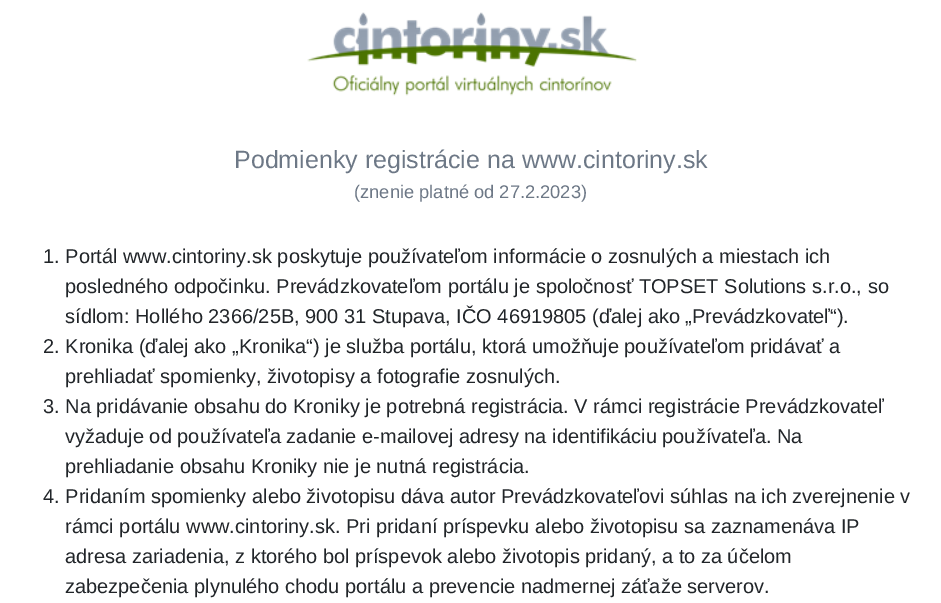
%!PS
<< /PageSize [941 603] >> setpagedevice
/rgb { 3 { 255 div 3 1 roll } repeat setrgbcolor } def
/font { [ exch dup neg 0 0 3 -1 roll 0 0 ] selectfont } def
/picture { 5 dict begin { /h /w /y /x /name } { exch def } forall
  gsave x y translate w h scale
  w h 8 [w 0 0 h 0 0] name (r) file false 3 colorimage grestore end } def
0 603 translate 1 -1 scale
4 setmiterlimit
255 255 255 rgb
0 0 941 603 rectfill
(img/1.rgb) 307 12 330 84 picture
/LiberationSans-Regular 25 font
109 120 134 rgb
234 168 moveto (Podmienky registrácie na www.cintoriny.sk) show
/LiberationSans-Regular 18.3 font
354 198 moveto (\(znenie platné od 27.2.2023\)) show
/LiberationSans-Regular 20 font
33 37 41 rgb
[
  [(1. Portál www.cintoriny.sk poskytuje používateľom informácie o zosnulých a miestach ich) 43 263]
  [(posledného odpočinku. Prevádzkovateľom portálu je spoločnosť TOPSET Solutions s.r.o., so) 65 293]
  [(sídlom: Hollého 2366/25B, 900 31 Stupava, IČO 46919805 \(ďalej ako „Prevádzkovateľ“\).) 65 323]
  [(2. Kronika \(ďalej ako „Kronika“\) je služba portálu, ktorá umožňuje používateľom pridávať a) 43 353]
  [(prehliadať spomienky, životopisy a fotografie zosnulých.) 65 383]
  [(3. Na pridávanie obsahu do Kroniky je potrebná registrácia. V rámci registrácie Prevádzkovateľ) 43 413]
  [(vyžaduje od používateľa zadanie e-mailovej adresy na identifikáciu používateľa. Na) 65 443]
  [(prehliadanie obsahu Kroniky nie je nutná registrácia.) 65 473]
  [(4. Pridaním spomienky alebo životopisu dáva autor Prevádzkovateľovi súhlas na ich zverejnenie v) 43 503]
  [(rámci portálu www.cintoriny.sk. Pri pridaní príspevku alebo životopisu sa zaznamenáva IP) 65 533]
  [(adresa zariadenia, z ktorého bol príspevok alebo životopis pridaný, a to za účelom) 65 563]
  [(zabezpečenia plynulého chodu portálu a prevencie nadmernej záťaže serverov.) 65 593]
] { aload pop moveto show } forall
showpage
